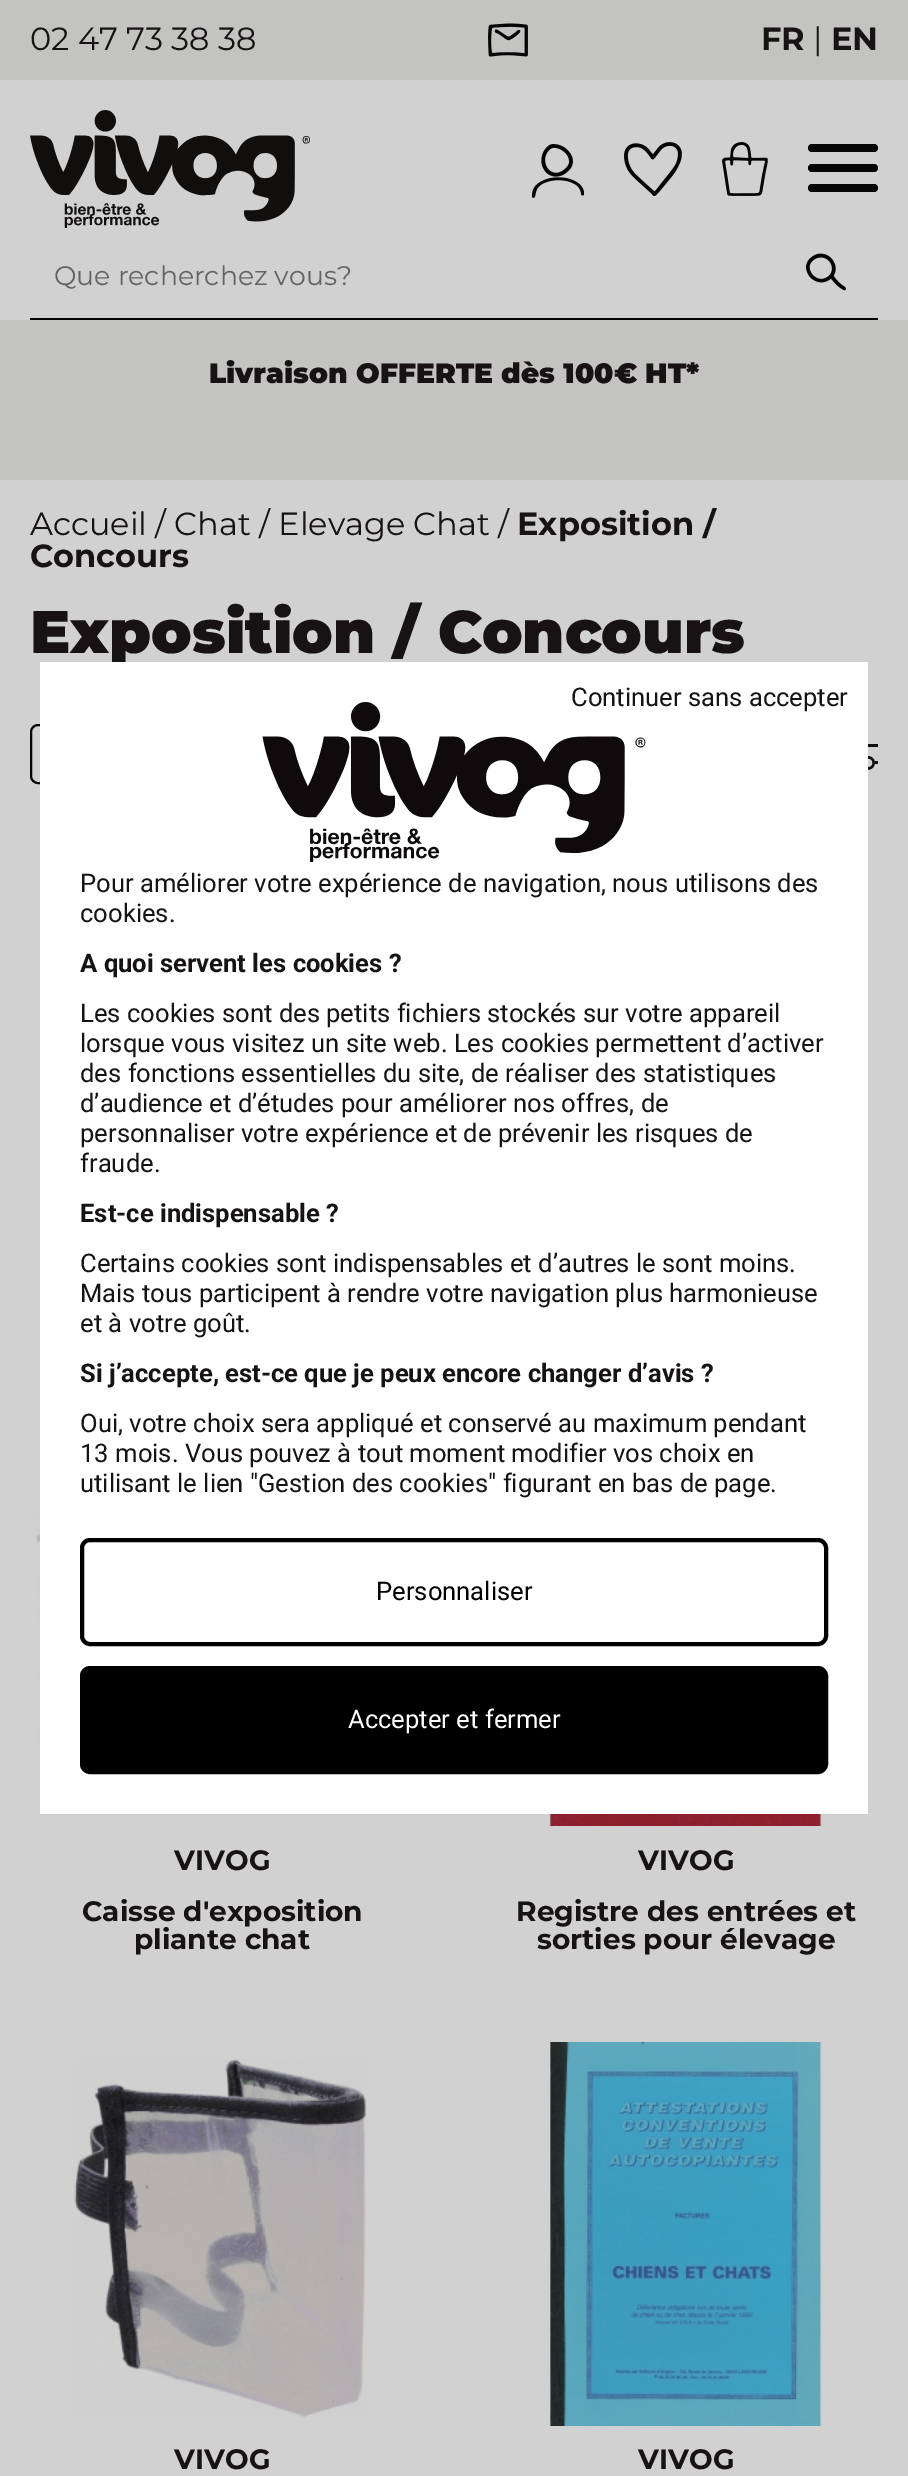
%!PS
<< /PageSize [908 2476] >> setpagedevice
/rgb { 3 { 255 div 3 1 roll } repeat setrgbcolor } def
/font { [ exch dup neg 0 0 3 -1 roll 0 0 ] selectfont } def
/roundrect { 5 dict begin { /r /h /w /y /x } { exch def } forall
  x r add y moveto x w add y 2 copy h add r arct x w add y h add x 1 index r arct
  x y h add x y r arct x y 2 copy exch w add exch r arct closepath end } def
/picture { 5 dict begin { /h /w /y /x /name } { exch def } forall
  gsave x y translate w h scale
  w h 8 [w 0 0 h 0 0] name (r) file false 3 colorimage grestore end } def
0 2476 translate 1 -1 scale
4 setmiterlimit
209 209 209 rgb
0 0 908 2476 rectfill
195 195 194 rgb
0 0 908 80 rectfill
(img/1.rgb) 488 23 40 34 picture
(img/2.rgb) 30 110 280 118 picture
(img/3.rgb) 532 144 52 54 picture
(img/4.rgb) 624 142 58 54 picture
(img/5.rgb) 722 142 46 54 picture
5 5 5 rgb
808 144 70 8 4 roundrect fill
808 164 70 8 4 roundrect fill
808 184 70 8 4 roundrect fill
30 318 848 2 rectfill
(img/6.rgb) 806 253 40 38 picture
195 195 194 rgb
0 320 908 160 rectfill
5 5 5 rgb
2 setlinewidth
31 725 296 58 7 roundrect stroke
(img/7.rgb) 868 744 10 26 picture
(img/8.rgb) 36 1505 4 260 picture
(img/9.rgb) 549 1814 274 12 picture
(img/10.rgb) 74 2059 293 359 picture
(img/11.rgb) 550 2042 273 384 picture
/Montserrat-Regular 32 font
23 19 21 rgb
30 50 moveto (02 47 73 38 38) show
/Montserrat-Bold 32 font
761 50 moveto (FR) show
/Montserrat-Regular 32 font
813 50 moveto (|) show
/Montserrat-Bold 32 font
831 50 moveto (EN) show
/Montserrat-Regular 26.75 font
99 99 98 rgb
54 285 moveto (Que recherchez vous?) show
/Montserrat-Black 28 font
23 19 21 rgb
209 383 moveto (Livraison OFFERTE dès 100€ HT*) show
/Montserrat-Regular 32 font
30 535 moveto (Accueil / Chat / Elevage Chat /) show
/Montserrat-Bold 32 font
517 535 moveto (Exposition /) show
30 567 moveto (Concours) show
/Montserrat-Black 60 font
30 653 moveto (Exposition / Concours) show
/Montserrat-Bold 28 font
[
  [(VIVOG) 174 1870]
  [(Caisse d'exposition) 82 1921]
  [(pliante chat) 134 1949]
  [(VIVOG) 638 1870]
  [(Registre des entrées et) 516 1921]
  [(sorties pour élevage) 537 1949]
  [(VIVOG) 174 2469]
  [(VIVOG) 638 2469]
] { aload pop moveto show } forall
255 255 255 rgb
40 662 828 1152 rectfill
(img/12.rgb) 262 702 384 160 picture
/Roboto-Regular 25.6 font
23 19 21 rgb
[
  [(Continuer sans accepter) 571 706]
  [(Pour améliorer votre expérience de navigation, nous utilisons des) 80 892]
  [(cookies.) 80 922]
] { aload pop moveto show } forall
/Roboto-Bold 25.6 font
80 972 moveto (A quoi servent les cookies ?) show
/Roboto-Regular 25.6 font
[
  [(Les cookies sont des petits fichiers stockés sur votre appareil) 80 1022]
  [(lorsque vous visitez un site web. Les cookies permettent d’activer) 80 1052]
  [(des fonctions essentielles du site, de réaliser des statistiques) 80 1082]
  [(d’audience et d’études pour améliorer nos offres, de) 80 1112]
  [(personnaliser votre expérience et de prévenir les risques de) 80 1142]
  [(fraude.) 80 1172]
] { aload pop moveto show } forall
/Roboto-Bold 25.6 font
80 1222 moveto (Est-ce indispensable ?) show
/Roboto-Regular 25.6 font
[
  [(Certains cookies sont indispensables et d’autres le sont moins.) 80 1272]
  [(Mais tous participent à rendre votre navigation plus harmonieuse) 80 1302]
  [(et à votre goût.) 80 1332]
] { aload pop moveto show } forall
/Roboto-Bold 25.6 font
80 1382 moveto (Si j’accepte, est-ce que je peux encore changer d’avis ?) show
/Roboto-Regular 25.6 font
[
  [(Oui, votre choix sera appliqué et conservé au maximum pendant) 80 1432]
  [(13 mois. Vous pouvez à tout moment modifier vos choix en) 80 1462]
  [(utilisant le lien "Gestion des cookies" figurant en bas de page.) 80 1492]
] { aload pop moveto show } forall
0 0 0 rgb
4 setlinewidth
82 1540 744 104 8 roundrect stroke
376 1600 moveto (Personnaliser) show
82 1668 744 104 8 roundrect gsave fill grestore
stroke
255 255 255 rgb
348 1728 moveto (Accepter et fermer) show
showpage
